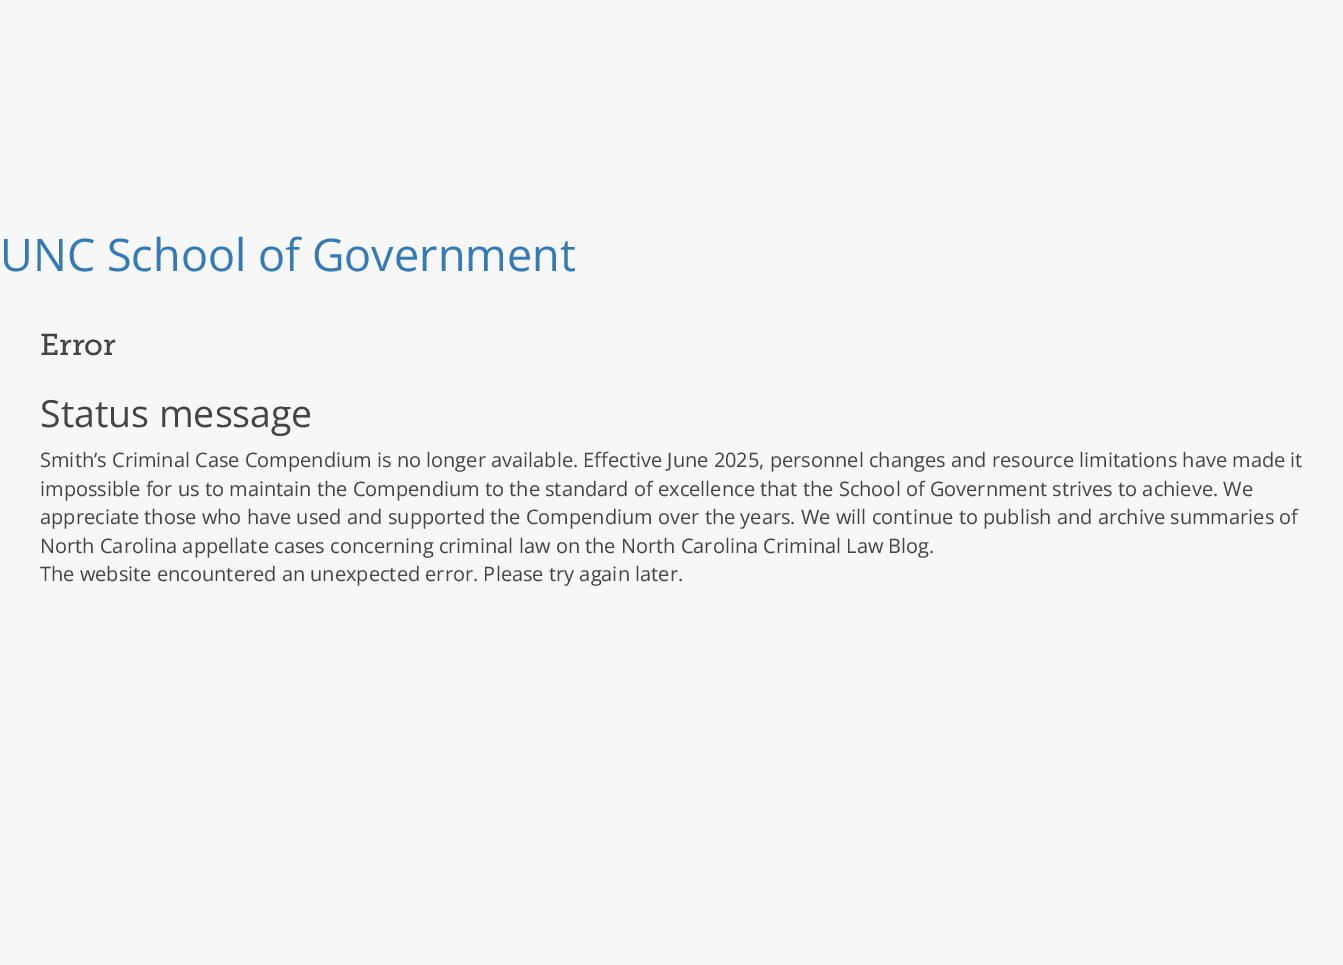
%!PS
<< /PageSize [1343 965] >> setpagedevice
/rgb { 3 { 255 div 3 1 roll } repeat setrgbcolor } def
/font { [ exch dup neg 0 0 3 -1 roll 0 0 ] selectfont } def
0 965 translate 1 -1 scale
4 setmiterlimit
247 247 247 rgb
0 0 1343 965 rectfill
/OpenSans-Regular 45 font
51 122 183 rgb
0 271 moveto (UNC School of Government) show
/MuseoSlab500-Regular 30 font
68 68 68 rgb
40 355 moveto (Error) show
/OpenSans-Regular 37.5 font
40 427 moveto (Status message) show
/OpenSans-Regular 20 font
[
  [(Smith’s Criminal Case Compendium is no longer available. Effective June 2025, personnel changes and resource limitations have made it) 40 467]
  [(impossible for us to maintain the Compendium to the standard of excellence that the School of Government strives to achieve. We) 40 496]
  [(appreciate those who have used and supported the Compendium over the years. We will continue to publish and archive summaries of) 40 524]
  [(North Carolina appellate cases concerning criminal law on the North Carolina Criminal Law Blog.) 40 553]
  [(The website encountered an unexpected error. Please try again later.) 40 581]
] { aload pop moveto show } forall
showpage
